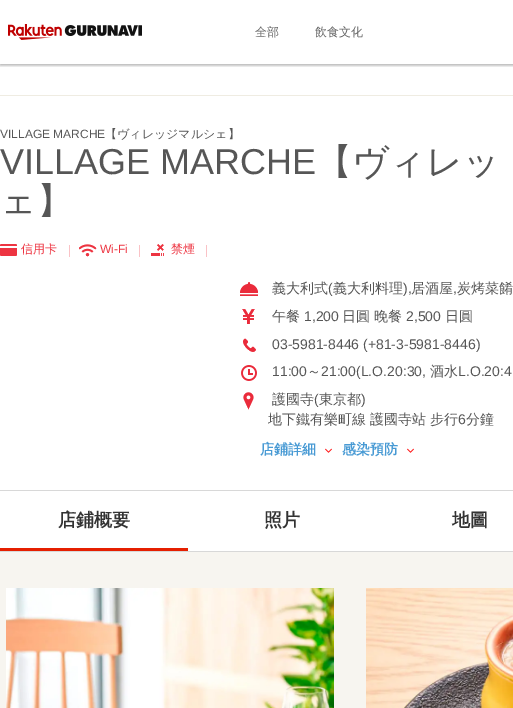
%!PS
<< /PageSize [513 708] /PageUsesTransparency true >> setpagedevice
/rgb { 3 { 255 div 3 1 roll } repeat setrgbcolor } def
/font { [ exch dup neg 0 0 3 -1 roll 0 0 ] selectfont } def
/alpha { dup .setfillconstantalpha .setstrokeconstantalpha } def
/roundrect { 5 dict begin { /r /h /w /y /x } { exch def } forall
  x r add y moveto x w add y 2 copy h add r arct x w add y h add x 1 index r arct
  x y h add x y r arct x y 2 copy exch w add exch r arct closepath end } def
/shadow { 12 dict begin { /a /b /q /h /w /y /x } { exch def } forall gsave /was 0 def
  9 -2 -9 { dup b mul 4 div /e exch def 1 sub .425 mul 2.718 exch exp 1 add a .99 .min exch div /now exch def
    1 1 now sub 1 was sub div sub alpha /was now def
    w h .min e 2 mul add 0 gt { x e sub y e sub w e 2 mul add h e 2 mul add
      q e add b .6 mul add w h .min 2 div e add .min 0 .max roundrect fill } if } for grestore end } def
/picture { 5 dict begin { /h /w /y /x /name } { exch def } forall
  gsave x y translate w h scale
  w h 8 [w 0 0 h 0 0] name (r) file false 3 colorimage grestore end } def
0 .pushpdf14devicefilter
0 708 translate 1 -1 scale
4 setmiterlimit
255 255 255 rgb
0 0 513 708 rectfill
gsave
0 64 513 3 rectclip
0 0 0 rgb
0 1 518 64 0 1.5 0.2 shadow
0 2 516 64 0 1 0.12 shadow
grestore
(img/1.rgb) 8 24 134 16 picture
239 236 226 rgb
0 95 513 1 rectfill
216 216 216 rgb
0 490 513 1 rectfill
(img/2.rgb) 0 244 17 12 picture
250 194 198 rgb
69 245 1 12 rectfill
(img/3.rgb) 79 244 18 13 picture
139 245 1 12 rectfill
(img/4.rgb) 151 244 13 12 picture
206 245 1 12 rectfill
(img/5.rgb) 240 282 18 14 picture
(img/6.rgb) 242 309 13 15 picture
(img/7.rgb) 243 338 13 14 picture
(img/8.rgb) 241 365 16 16 picture
(img/9.rgb) 243 392 11 18 picture
(img/10.rgb) 325 448 7 5 picture
(img/10.rgb) 407 448 7 5 picture
[
  [0 551 513 1 216 216 216]
  [0 548 188 3 229 31 0]
  [0 552 513 156 247 245 240]
] { aload pop rgb rectfill } forall
(img/11.rgb) 6 588 328 120 picture
(img/12.rgb) 366 588 147 120 picture
/WenQuanYiZenHei-Medium 12 font
102 102 102 rgb
255 36 moveto (全部) show
315 36 moveto (飲食文化) show
/LiberationSans-Regular 12 font
86 86 86 rgb
0 138 moveto (VILLAGE MARCHE) show
/WenQuanYiZenHei-Medium 12 font
105 138 moveto (【ヴィレッジマルシェ】) show
/LiberationSans-Regular 36 font
0 174 moveto (VILLAGE MARCHE) show
/WenQuanYiZenHei-Medium 36 font
316 174 moveto (【ヴィレッ) show
0 213 moveto (ェ】) show
/WenQuanYiZenHei-Medium 12 font
237 52 65 rgb
21 253 moveto (信用卡) show
/LiberationSans-Regular 12 font
100 253 moveto (Wi-Fi) show
/WenQuanYiZenHei-Medium 12 font
171 253 moveto (禁煙) show
/WenQuanYiZenHei-Medium 14 font
86 86 86 rgb
272 293 moveto (義大利式) show
/LiberationSans-Regular 14 font
328 293 moveto (\() show
/WenQuanYiZenHei-Medium 14 font
333 293 moveto (義大利料理) show
/LiberationSans-Regular 14 font
403 293 moveto (\),) show
/WenQuanYiZenHei-Medium 14 font
411 293 moveto (居酒屋) show
/LiberationSans-Regular 14 font
453 293 moveto (,) show
/WenQuanYiZenHei-Medium 14 font
457 293 moveto (炭烤菜餚) show
272 321 moveto (午餐) show
/LiberationSans-Regular 14 font
304 321 moveto (1,200) show
/WenQuanYiZenHei-Medium 14 font
342 321 moveto (日圓 晚餐) show
/LiberationSans-Regular 14 font
406 321 moveto (2,500) show
/WenQuanYiZenHei-Medium 14 font
445 321 moveto (日圓) show
/LiberationSans-Regular 14 font
272 349 moveto (03-5981-8446 \(+81-3-5981-8446\)) show
272 376 moveto (11:00) show
/WenQuanYiZenHei-Medium 14 font
307 376 moveto (～) show
/LiberationSans-Regular 14 font
321 376 moveto (21:00\(L.O.20:30,) show
/WenQuanYiZenHei-Medium 14 font
430 376 moveto (酒水) show
/LiberationSans-Regular 14 font
458 376 moveto (L.O.20:4) show
/WenQuanYiZenHei-Medium 14 font
272 404 moveto (護國寺) show
/LiberationSans-Regular 14 font
314 404 moveto (\() show
/WenQuanYiZenHei-Medium 14 font
319 404 moveto (東京都) show
/LiberationSans-Regular 14 font
361 404 moveto (\)) show
/WenQuanYiZenHei-Medium 14 font
268 424 moveto (地下鐵有樂町線 護國寺站 步行) show
/LiberationSans-Regular 14 font
458 424 moveto (6) show
/WenQuanYiZenHei-Medium 14 font
466 424 moveto (分鐘) show
/WenQuanYiZenHei-Bold 14 font
72 154 212 rgb
260 454 moveto (店鋪詳細) show
342 454 moveto (感染預防) show
/WenQuanYiZenHei-Bold 18 font
51 51 51 rgb
[
  [(店鋪概要) 58 526]
  [(照片) 264 526]
  [(地圖) 452 526]
] { aload pop moveto show } forall
.poppdf14devicefilter showpage
